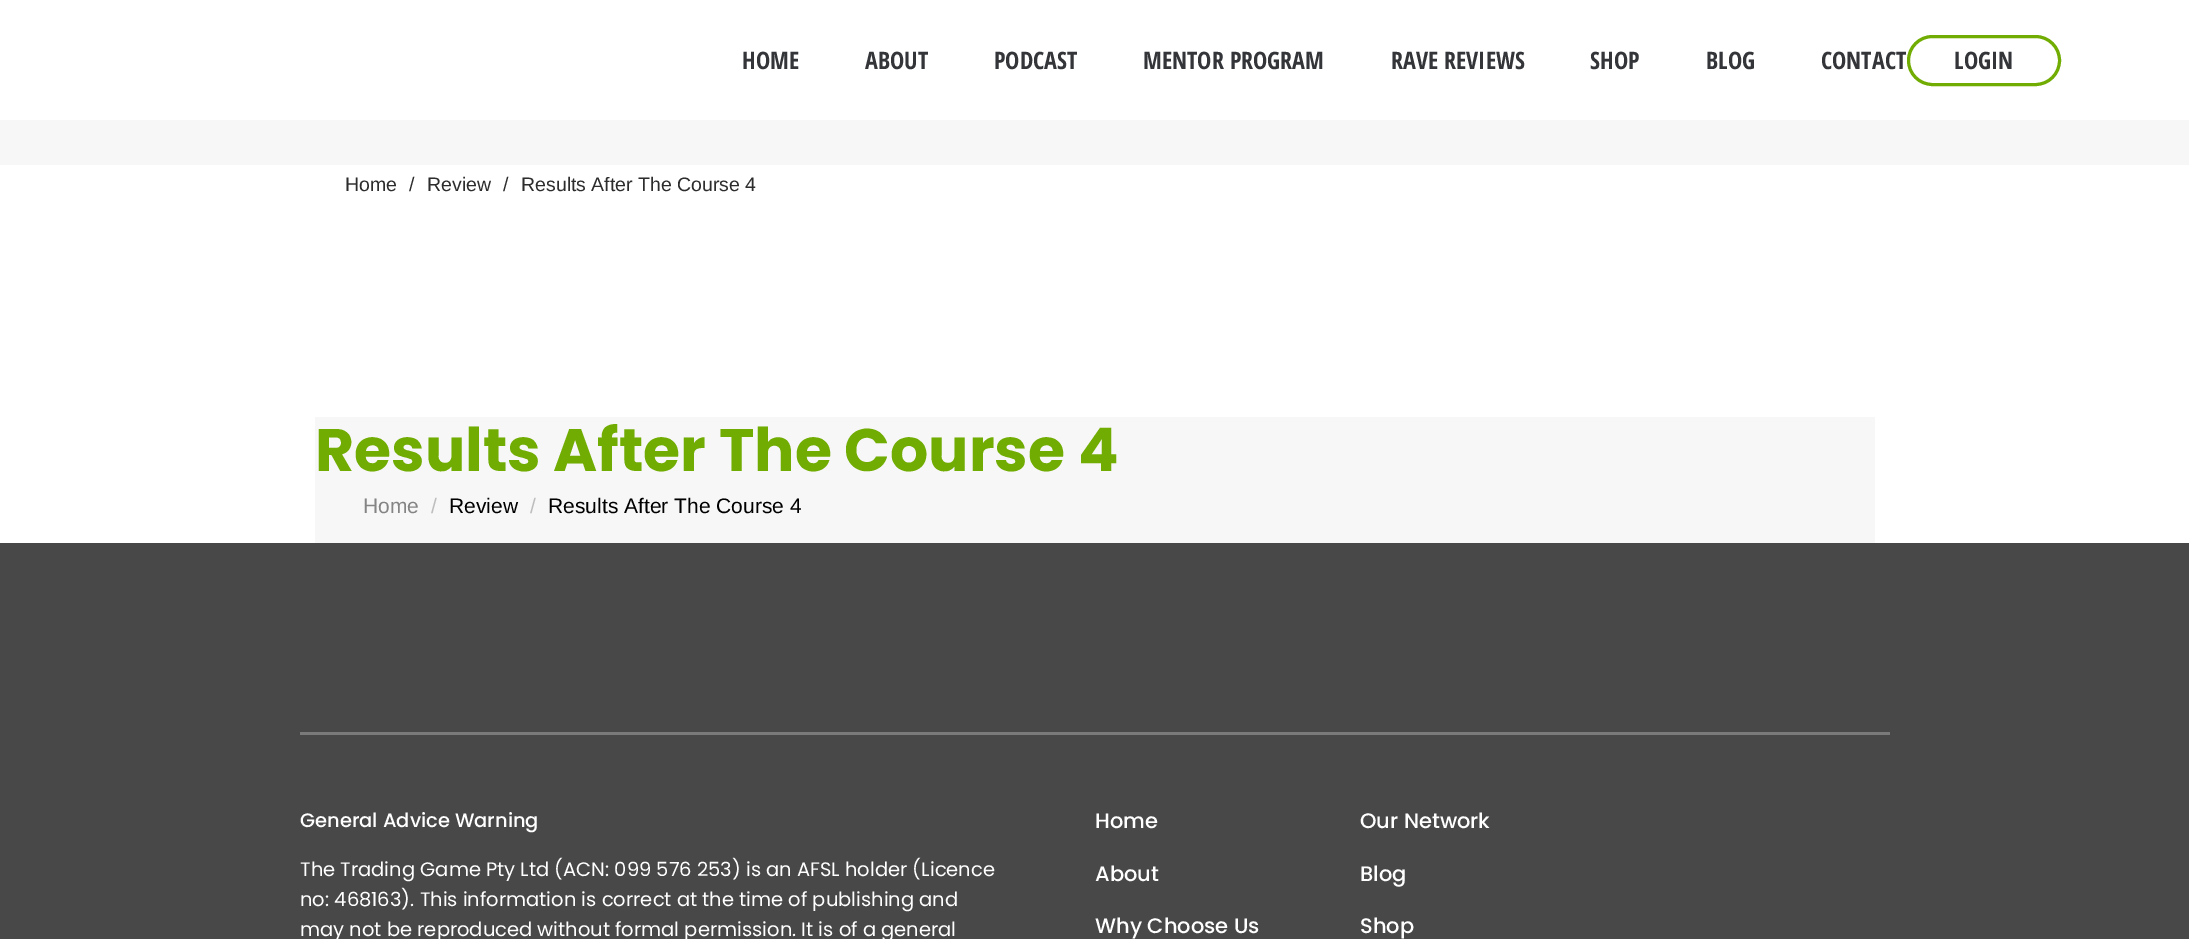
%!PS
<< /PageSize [2189 939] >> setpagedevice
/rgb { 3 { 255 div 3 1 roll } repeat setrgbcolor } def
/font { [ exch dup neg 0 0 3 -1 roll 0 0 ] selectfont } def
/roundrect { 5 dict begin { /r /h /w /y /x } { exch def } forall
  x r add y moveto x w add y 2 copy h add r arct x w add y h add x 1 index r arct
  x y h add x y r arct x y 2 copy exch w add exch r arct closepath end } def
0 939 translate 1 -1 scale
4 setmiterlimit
255 255 255 rgb
0 0 2189 939 rectfill
112 172 1 rgb
3 setlinewidth
1908.5 36.5 151 48 24 roundrect stroke
[
  [0 120 2189 45 247 247 247]
  [315 417 1560 126 247 247 247]
  [0 543 2189 396 72 72 72]
  [300 732 1590 3 122 122 122]
] { aload pop rgb rectfill } forall
/OpenSansCondensed-Bold 24 font
51 53 57 rgb
[
  [(HOME) 742 69]
  [(ABOUT) 865 69]
  [(PODCAST) 994 69]
  [(MENTOR PROGRAM) 1143 69]
  [(RAVE REVIEWS) 1391 69]
  [(SHOP) 1590 69]
  [(BLOG) 1706 69]
  [(CONTACT) 1821 69]
  [(LOGIN) 1954 69]
] { aload pop moveto show } forall
/LiberationSans-Regular 19.5 font
45 45 45 rgb
[
  [(Home) 345 191]
  [(/) 409 191]
  [(Review) 427 191]
  [(/) 503 191]
  [(Results After The Course 4) 521 191]
] { aload pop moveto show } forall
/Poppins-Bold 60 font
112 172 1 rgb
315 471 moveto (Results After The Course 4) show
/LiberationSans-Regular 21 font
132 132 132 rgb
363 513 moveto (Home) show
190 190 190 rgb
431 513 moveto (/) show
0 0 0 rgb
449 513 moveto (Review) show
190 190 190 rgb
530 513 moveto (/) show
0 0 0 rgb
548 513 moveto (Results After The Course 4) show
/Poppins-Medium 19.5 font
255 255 255 rgb
300 827 moveto (General Advice Warning) show
/Poppins-Regular 19.5 font
[
  [(The Trading Game Pty Ltd \(ACN: 099 576 253\) is an AFSL holder \(Licence) 300 876]
  [(no: 468163\). This information is correct at the time of publishing and) 300 906]
  [(may not be reproduced without formal permission. It is of a general) 300 936]
] { aload pop moveto show } forall
/Poppins-Medium 21 font
[
  [(Home) 1095 828]
  [(About) 1095 881]
  [(Why Choose Us) 1095 933]
  [(Our Network) 1360 828]
  [(Blog) 1360 881]
  [(Shop) 1360 933]
] { aload pop moveto show } forall
showpage
